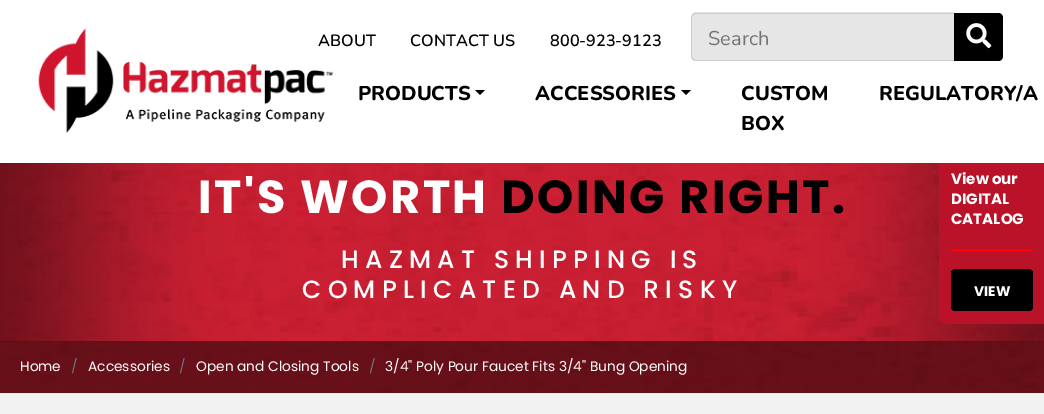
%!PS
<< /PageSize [1044 414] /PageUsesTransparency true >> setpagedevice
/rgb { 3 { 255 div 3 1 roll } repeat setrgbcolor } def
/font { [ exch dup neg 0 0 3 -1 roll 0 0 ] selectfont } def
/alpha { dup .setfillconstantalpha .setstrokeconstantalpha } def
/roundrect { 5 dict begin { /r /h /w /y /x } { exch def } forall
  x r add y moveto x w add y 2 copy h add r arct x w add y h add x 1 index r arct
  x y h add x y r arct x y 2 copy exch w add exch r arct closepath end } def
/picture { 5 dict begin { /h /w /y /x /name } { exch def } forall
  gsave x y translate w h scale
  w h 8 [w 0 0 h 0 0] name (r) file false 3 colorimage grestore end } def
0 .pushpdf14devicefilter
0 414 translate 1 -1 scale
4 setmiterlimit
186 18 41 rgb
0 0 1044 414 rectfill
(img/3.rgb) 0 163 1044 230 picture
0.49 alpha
0 0 0 rgb
0 341 1044 52 rectfill
1 alpha
(img/4.rgb) 0 163 1044 179 picture
186 18 41 rgb
947 150 moveto 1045 150 lineto 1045 324 lineto 947 324 lineto 942.5 324 939 320.5 939 316 curveto 939 158 lineto 939 153.5 942.5 150 947 150 curveto closepath fill
255 255 255 rgb
0 0 1044 163 rectfill
(img/1.rgb) 38 28 295 105 picture
230 230 230 rgb
696 13 moveto 954 13 lineto 954 61 lineto 696 61 lineto 693 61 691 59 691 56 curveto 691 18 lineto 691 15 693 13 696 13 curveto closepath fill
0.11 alpha
0 0 0 rgb
696 12 moveto 954 12 lineto 954 61 lineto 696 61 lineto 693 61 691 59 691 56 curveto 691 18 lineto 691 15 693 12 696 12 curveto closepath 696 14 moveto 954 14 lineto 954 60 lineto 696 60 lineto 694 60 692 58 692 56 curveto 692 18 lineto 692 15 694 14 696 14 curveto closepath eofill
1 alpha
954 13 moveto 998 13 lineto 1001 13 1003 15 1003 18 curveto 1003 56 lineto 1003 59 1001 61 998 61 curveto 954 61 lineto closepath fill
(img/2.rgb) 966 23 26 26 picture
475 90 moveto 485 90 lineto 480 95 lineto closepath fill
681 90 moveto 691 90 lineto 686 95 lineto closepath fill
242 242 242 rgb
0 393 1044 21 rectfill
255 0 0 rgb
951 249 82 3 rectfill
0 0 0 rgb
951 269 82 42 4 roundrect fill
/Nunito-SemiBold 16.25 font
[
  [(ABOUT) 318 46]
  [(CONTACT US) 410 46]
  [(800-923-9123) 550 46]
] { aload pop moveto show } forall
/Nunito-Regular 20 font
117 117 117 rgb
708 45 moveto (Search) show
/Nunito-ExtraBold 20 font
0 0 0 rgb
[
  [(PRODUCTS) 358 100]
  [(ACCESSORIES) 535 100]
  [(CUSTOM) 741 100]
  [(BOX) 741 130]
  [(REGULATORY/A) 879 100]
] { aload pop moveto show } forall
/Poppins-Bold 46.25 font
255 255 255 rgb
198 213 moveto 2.5 0 (IT'S WORTH) ashow
0 0 0 rgb
501 213 moveto 2.5 0 (DOING RIGHT.) ashow
/Poppins-Medium 25 font
255 255 255 rgb
341 268 moveto 6.25 0 (HAZMAT SHIPPING IS) ashow
302 298 moveto 6.25 0 (COMPLICATED AND RISKY) ashow
/Poppins-Regular 13.75 font
20 371 moveto (Home) show
108 117 125 rgb
71 371 moveto (/) show
255 255 255 rgb
88 371 moveto (Accessories) show
108 117 125 rgb
179 371 moveto (/) show
255 255 255 rgb
196 371 moveto (Open and Closing Tools) show
108 117 125 rgb
369 371 moveto (/) show
255 255 255 rgb
385 371 moveto (3/4" Poly Pour Faucet Fits 3/4" Bung Opening) show
/Poppins-Bold 15 font
[
  [(View our) 951 184]
  [(DIGITAL) 951 204]
  [(CATALOG) 951 224]
] { aload pop moveto show } forall
/Poppins-Bold 13.75 font
974 296 moveto (VIEW) show
.poppdf14devicefilter showpage
